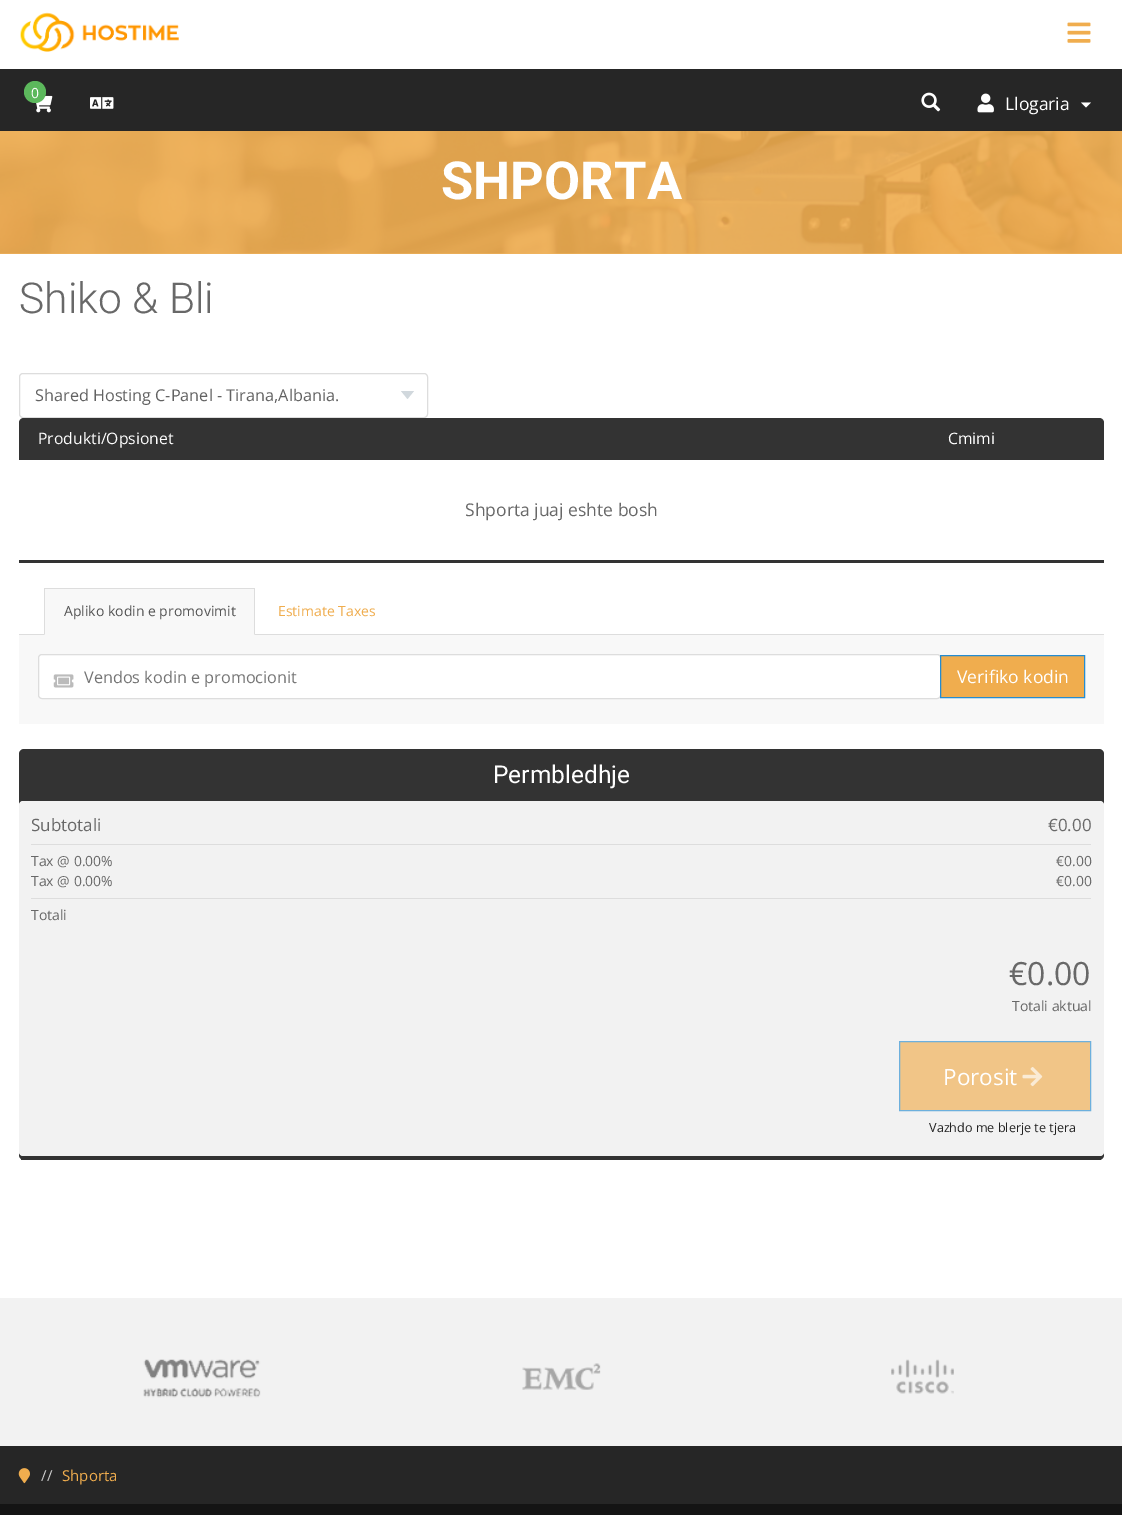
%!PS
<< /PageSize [1122 1515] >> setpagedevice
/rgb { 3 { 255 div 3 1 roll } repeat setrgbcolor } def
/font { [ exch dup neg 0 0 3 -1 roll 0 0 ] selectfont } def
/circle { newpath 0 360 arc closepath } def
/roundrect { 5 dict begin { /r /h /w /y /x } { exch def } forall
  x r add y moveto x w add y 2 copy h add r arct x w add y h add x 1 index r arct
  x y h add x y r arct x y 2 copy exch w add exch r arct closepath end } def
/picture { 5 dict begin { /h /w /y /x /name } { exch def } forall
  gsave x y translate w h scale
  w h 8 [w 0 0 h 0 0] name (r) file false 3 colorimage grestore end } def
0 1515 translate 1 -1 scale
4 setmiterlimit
255 255 255 rgb
0 0 1122 1515 rectfill
242 181 96 rgb
0 253 1122 1 rectfill
(img/1.rgb) 20 12 159 40 picture
(img/2.rgb) 1067 22 24 21 picture
38 38 38 rgb
0 69 1122 62 rectfill
(img/3.rgb) 36 95 17 18 picture
92 184 92 rgb
35 92 11 circle fill
(img/4.rgb) 90 97 24 12 picture
(img/5.rgb) 921 92 20 20 picture
(img/6.rgb) 977 93 17 20 picture
255 255 255 rgb
1081 102.5 moveto 1091 102.5 lineto 1086 107.5 lineto closepath fill
(img/7.rgb) 0 131 1122 123 picture
209 216 221 rgb
401 391 moveto 414 391 lineto 407.5 399 lineto closepath eofill
221 221 221 rgb
19.5 373.5 408 44 3.5 roundrect stroke
51 51 51 rgb
24 418 moveto 1099 418 lineto 1102 418 1104 420 1104 423 curveto 1104 460 lineto 19 460 lineto 19 423 lineto 19 420 21 418 24 418 curveto closepath fill
[
  [19 560 1085 3 51 51 51]
  [19 634 1085 1 221 221 221]
  [44 589 211 46 248 248 248]
  [44 588 211 1 221 221 221]
] { aload pop rgb rectfill } forall
255 588 moveto 255 635 lineto 254 634 lineto 254 589 lineto closepath fill
44 635 moveto 44 588 lineto 45 589 lineto 45 634 lineto closepath fill
248 248 248 rgb
19 635 1085 89 rectfill
255 255 255 rgb
38.5 654.5 902 44 3.5 roundrect gsave fill grestore
221 221 221 rgb
stroke
(img/8.rgb) 53 674 21 14 picture
240 173 78 rgb
940.5 655.5 moveto 1084.5 655.5 lineto 1084.5 697.5 lineto 940.5 697.5 lineto closepath gsave fill grestore
37 140 209 rgb
stroke
51 51 51 rgb
19 749 1085 411 5 roundrect fill
21 1159 1080 1 rectfill
242 242 242 rgb
19 801 1085 355 4 roundrect fill
221 221 221 rgb
31 844 1060 1 rectfill
31 898 1060 1 rectfill
241 197 135 rgb
899.5 1041.5 moveto 1090.5 1041.5 lineto 1090.5 1110.5 lineto 899.5 1110.5 lineto closepath gsave fill grestore
109 176 221 rgb
stroke
(img/9.rgb) 1022 1067 21 20 picture
242 242 242 rgb
0 1298 1122 148 rectfill
(img/10.rgb) 143 1359 118 39 picture
(img/11.rgb) 522 1363 79 27 picture
(img/12.rgb) 891 1359 63 35 picture
38 38 38 rgb
0 1446 1122 58 rectfill
(img/13.rgb) 18 1468 12 16 picture
20 20 20 rgb
0 1504 1122 11 rectfill
/OpenSans-Regular 14 font
255 255 255 rgb
31 98 moveto (0) show
/OpenSans-Regular 17.5 font
1005 110 moveto (Llogaria) show
/Roboto-Bold 52.5 font
441 199 moveto (SHPORTA) show
/Roboto-Light 42.5 font
104 104 104 rgb
19 313 moveto (Shiko & Bli) show
/OpenSans-Regular 16.25 font
98 98 98 rgb
35 401 moveto (Shared Hosting C-Panel - Tirana,Albania.) show
/OpenSans-Regular 15.75 font
255 255 255 rgb
38 444 moveto (Produkti/Opsionet) show
948 444 moveto (Cmimi) show
/OpenSans-Regular 17.5 font
104 104 104 rgb
465 516 moveto (Shporta juaj eshte bosh) show
/OpenSans-Regular 14 font
85 85 85 rgb
64 616 moveto (Apliko kodin e promovimit) show
240 173 78 rgb
278 616 moveto (Estimate Taxes) show
/OpenSans-Regular 16.25 font
117 117 117 rgb
84 683 moveto (Vendos kodin e promocionit) show
/OpenSans-Regular 17.5 font
255 255 255 rgb
957 683 moveto (Verifiko kodin) show
/Roboto-Regular 24.5 font
493 783 moveto (Permbledhje) show
/OpenSans-Regular 17 font
104 104 104 rgb
31 831 moveto (Subtotali) show
1048 831 moveto (€0.00) show
/OpenSans-Regular 14 font
[
  [(Tax @ 0.00%) 31 866]
  [(€0.00) 1056 866]
  [(Tax @ 0.00%) 31 886]
  [(€0.00) 1056 886]
  [(Totali) 31 920]
] { aload pop moveto show } forall
/OpenSans-Regular 32 font
1009 985 moveto (€0.00) show
/OpenSans-Regular 14 font
1012 1011 moveto (Totali aktual) show
/OpenSans-Regular 22.5 font
255 255 255 rgb
943 1085 moveto (Porosit) show
/OpenSans-Regular 12.6 font
34 34 34 rgb
929 1132 moveto (Vazhdo me blerje te tjera) show
/OpenSans-Regular 15 font
204 204 204 rgb
41 1481 moveto (//) show
240 173 78 rgb
62 1481 moveto (Shporta) show
showpage
